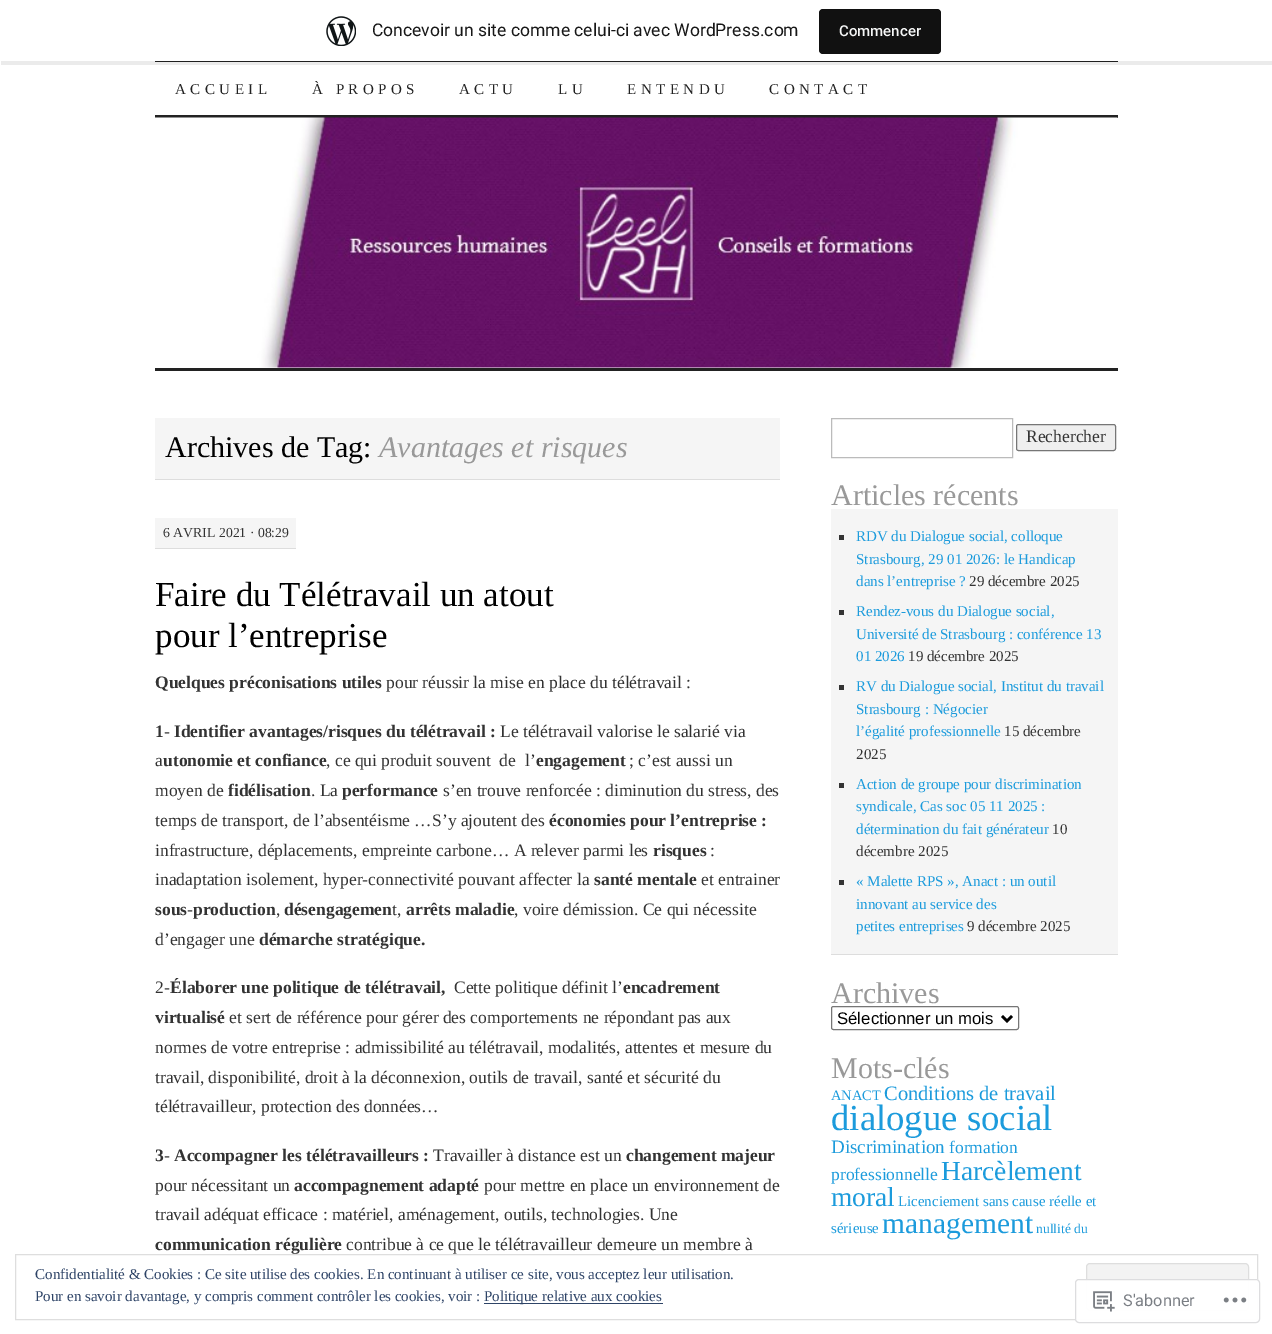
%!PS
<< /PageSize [1272 1334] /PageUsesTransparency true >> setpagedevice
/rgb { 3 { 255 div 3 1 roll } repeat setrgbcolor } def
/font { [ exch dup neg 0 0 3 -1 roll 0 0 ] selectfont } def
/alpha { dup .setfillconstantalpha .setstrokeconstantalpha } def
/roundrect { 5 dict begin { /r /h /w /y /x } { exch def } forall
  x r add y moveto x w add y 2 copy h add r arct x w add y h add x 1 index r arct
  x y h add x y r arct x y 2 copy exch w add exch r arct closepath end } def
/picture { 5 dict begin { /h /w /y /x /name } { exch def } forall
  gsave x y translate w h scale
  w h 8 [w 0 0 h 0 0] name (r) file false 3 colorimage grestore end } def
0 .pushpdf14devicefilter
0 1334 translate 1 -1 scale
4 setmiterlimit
255 255 255 rgb
0 0 1272 1334 rectfill
34 34 34 rgb
155 61 963 1 rectfill
0.08 alpha
0 0 0 rgb
1 61 moveto 1 65 lineto 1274 65 lineto 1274 4 lineto 1272 4 lineto 1272 61 lineto closepath fill
1 alpha
(img/1.rgb) 326 16 30 30 picture
17 17 17 rgb
819 9 122 45 4 roundrect fill
34 34 34 rgb
155 115 963 3 rectfill
(img/2.rgb) 155 117 963 251 picture
[
  [155 368 963 3 34 34 34]
  [155 418 625 61 245 245 245]
  [155 479 625 1 221 221 221]
  [155 518 141 30 245 245 245]
  [155 548 141 1 221 221 221]
] { aload pop rgb rectfill } forall
187 187 187 rgb
831.5 418.5 181 39 rectstroke
239 239 239 rgb
1016.5 424.5 99 26 2 roundrect gsave fill grestore
118 118 118 rgb
stroke
[
  [831 509 287 445 245 245 245]
  [831 954 287 1 221 221 221]
  [839 535 5 5 51 51 51]
  [839 610 5 5 51 51 51]
  [839 685 5 5 51 51 51]
  [839 783 5 5 51 51 51]
  [839 880 5 5 51 51 51]
] { aload pop rgb rectfill } forall
118 118 118 rgb
831.5 1006.5 187 23 2 roundrect stroke
0 0 0 rgb
2.5 setlinewidth
1002 1016 moveto 1007 1021 lineto 1012 1016 lineto stroke
222 222 222 rgb
1 setlinewidth
15.5 1254.5 1242 65 rectstroke
243 243 243 rgb
1086.5 1263.5 162 47 3.5 roundrect gsave fill grestore
222 222 222 rgb
stroke
46 68 103 rgb
484 1303 179 1 rectfill
0.98 alpha
255 255 255 rgb
1075 1279 185 44 4 roundrect fill
220 220 222 rgb
1075.5 1279.5 184 43 3.5 roundrect stroke
1 alpha
(img/3.rgb) 1093 1291 22 21 picture
(img/4.rgb) 1223 1297 24 6 picture
/Roboto-Regular 17.5 font
23 23 23 rgb
372 36 moveto (Concevoir un site comme celui-ci avec WordPress.com) show
/Roboto-Medium 15 font
246 247 247 rgb
839 36 moveto (Commencer) show
/LiberationSerif-Regular 15 font
34 34 34 rgb
175 94 moveto 4.5 0 (ACCUEIL) ashow
312 94 moveto 4.5 0 (À PROPOS) ashow
459 94 moveto 4.5 0 (ACTU) ashow
558 94 moveto 4.5 0 (LU) ashow
627 94 moveto 4.5 0 (ENTENDU) ashow
769 94 moveto 4.5 0 (CONTACT) ashow
/LiberationSerif-Regular 30 font
0 0 0 rgb
165 457 moveto (Archives de Tag:) show
/LiberationSerif-Italic 30 font
153 153 153 rgb
379 457 moveto (Avantages et risques) show
/LiberationSerif-Regular 13.75 font
51 51 51 rgb
163 537 moveto (6 AVRIL 2021 · 08:29) show
/LiberationSerif-Regular 35 font
0 0 0 rgb
155 606 moveto (Faire du Télétravail un atout) show
155 647 moveto (pour l’entreprise) show
/LiberationSerif-Bold 17.5 font
51 51 51 rgb
155 688 moveto (Quelques préconisations utiles) show
/LiberationSerif-Regular 17.5 font
386 688 moveto (pour réussir la mise en place du télétravail :) show
/LiberationSerif-Bold 17.5 font
155 737 moveto (1- Identifier avantages/risques du télétravail :) show
/LiberationSerif-Regular 17.5 font
500 737 moveto (Le télétravail valorise le salarié via) show
155 766 moveto (a) show
/LiberationSerif-Bold 17.5 font
163 766 moveto (utonomie et confiance) show
/LiberationSerif-Regular 17.5 font
326 766 moveto (, ce qui produit souvent  de  l’) show
/LiberationSerif-Bold 17.5 font
536 766 moveto (engagement) show
/LiberationSerif-Regular 17.5 font
629 766 moveto (; c’est aussi un) show
155 796 moveto (moyen de) show
/LiberationSerif-Bold 17.5 font
228 796 moveto (fidélisation) show
/LiberationSerif-Regular 17.5 font
311 796 moveto (. La) show
/LiberationSerif-Bold 17.5 font
342 796 moveto (performance) show
/LiberationSerif-Regular 17.5 font
443 796 moveto (s’en trouve renforcée : diminution du stress, des) show
155 826 moveto (temps de transport, de l’absentéisme …S’y ajoutent des) show
/LiberationSerif-Bold 17.5 font
549 826 moveto (économies pour l’entreprise :) show
/LiberationSerif-Regular 17.5 font
155 856 moveto (infrastructure, déplacements, empreinte carbone… A relever parmi les) show
/LiberationSerif-Bold 17.5 font
653 856 moveto (risques) show
/LiberationSerif-Regular 17.5 font
710 856 moveto (:) show
155 885 moveto (inadaptation isolement, hyper-connectivité pouvant affecter la) show
/LiberationSerif-Bold 17.5 font
594 885 moveto (santé mentale) show
/LiberationSerif-Regular 17.5 font
701 885 moveto (et entrainer) show
/LiberationSerif-Bold 17.5 font
155 915 moveto (sous-production) show
/LiberationSerif-Regular 17.5 font
276 915 moveto (,) show
/LiberationSerif-Bold 17.5 font
284 915 moveto (désengagemen) show
/LiberationSerif-Regular 17.5 font
392 915 moveto (t,) show
/LiberationSerif-Bold 17.5 font
406 915 moveto (arrêts maladie) show
/LiberationSerif-Regular 17.5 font
514 915 moveto (, voire démission. Ce qui nécessite) show
155 945 moveto (d’engager une) show
/LiberationSerif-Bold 17.5 font
259 945 moveto (démarche stratégique.) show
/LiberationSerif-Regular 17.5 font
155 993 moveto (2-) show
/LiberationSerif-Bold 17.5 font
170 993 moveto (Élaborer une politique de télétravail,) show
/LiberationSerif-Regular 17.5 font
454 993 moveto (Cette politique définit l’) show
/LiberationSerif-Bold 17.5 font
623 993 moveto (encadrement) show
155 1023 moveto (virtualisé) show
/LiberationSerif-Regular 17.5 font
[
  [(et sert de référence pour gérer des comportements ne répondant pas aux) 229 1023]
  [(normes de votre entreprise : admissibilité au télétravail, modalités, attentes et mesure du) 155 1053]
  [(travail, disponibilité, droit à la déconnexion, outils de travail, santé et sécurité du) 155 1083]
  [(télétravailleur, protection des données…) 155 1112]
] { aload pop moveto show } forall
/LiberationSerif-Bold 17.5 font
155 1161 moveto (3- Accompagner les télétravailleurs :) show
/LiberationSerif-Regular 17.5 font
433 1161 moveto (Travailler à distance est un) show
/LiberationSerif-Bold 17.5 font
626 1161 moveto (changement majeur) show
/LiberationSerif-Regular 17.5 font
155 1191 moveto (pour nécessitant un) show
/LiberationSerif-Bold 17.5 font
294 1191 moveto (accompagnement adapté) show
/LiberationSerif-Regular 17.5 font
484 1191 moveto (pour mettre en place un environnement de) show
155 1220 moveto (travail adéquat efficace : matériel, aménagement, outils, technologies. Une) show
/LiberationSerif-Bold 17.5 font
155 1250 moveto (communication régulière) show
/LiberationSerif-Regular 17.5 font
346 1250 moveto (contribue à ce que le télétravailleur demeure un membre à) show
1026 442 moveto (Rechercher) show
/LiberationSerif-Regular 30 font
153 153 153 rgb
831 505 moveto (Articles récents) show
/LiberationSerif-Regular 15 font
28 155 220 rgb
[
  [(RDV du Dialogue social, colloque) 856 541]
  [(Strasbourg, 29 01 2026: le Handicap) 856 564]
  [(dans l’entreprise ?) 856 586]
] { aload pop moveto show } forall
51 51 51 rgb
969 586 moveto (29 décembre 2025) show
28 155 220 rgb
[
  [(Rendez-vous du Dialogue social,) 856 616]
  [(Université de Strasbourg : conférence 13) 856 639]
  [(01 2026) 856 661]
] { aload pop moveto show } forall
51 51 51 rgb
908 661 moveto (19 décembre 2025) show
28 155 220 rgb
[
  [(RV du Dialogue social, Institut du travail) 856 691]
  [(Strasbourg : Négocier) 856 714]
  [(l’égalité professionnelle) 856 736]
] { aload pop moveto show } forall
51 51 51 rgb
1004 736 moveto (15 décembre) show
856 759 moveto (2025) show
28 155 220 rgb
[
  [(Action de groupe pour discrimination) 856 789]
  [(syndicale, Cas soc 05 11 2025 :) 856 811]
  [(détermination du fait générateur) 856 834]
] { aload pop moveto show } forall
51 51 51 rgb
1052 834 moveto (10) show
856 856 moveto (décembre 2025) show
28 155 220 rgb
[
  [(« Malette RPS », Anact : un outil) 856 886]
  [(innovant au service des) 856 909]
  [(petites entreprises) 856 931]
] { aload pop moveto show } forall
51 51 51 rgb
967 931 moveto (9 décembre 2025) show
/LiberationSerif-Regular 30 font
153 153 153 rgb
831 1003 moveto (Archives) show
/LiberationSans-Regular 16.75 font
0 0 0 rgb
837 1024 moveto (Sélectionner un mois) show
/LiberationSerif-Regular 30 font
153 153 153 rgb
831 1078 moveto (Mots-clés) show
/LiberationSerif-Regular 14.5 font
28 155 220 rgb
831 1100 moveto (ANACT) show
/LiberationSerif-Regular 20.5 font
884 1100 moveto (Conditions de travail) show
/LiberationSerif-Regular 36.75 font
831 1130 moveto (dialogue social) show
/LiberationSerif-Regular 19 font
831 1153 moveto (Discrimination) show
/LiberationSerif-Regular 17.5 font
949 1153 moveto (formation) show
831 1180 moveto (professionnelle) show
/LiberationSerif-Regular 27.5 font
941 1180 moveto (Harcèlement) show
831 1206 moveto (moral) show
/LiberationSerif-Regular 14.9 font
898 1206 moveto (Licenciement sans cause réelle et) show
831 1233 moveto (sérieuse) show
/LiberationSerif-Regular 29.5 font
882 1233 moveto (management) show
/LiberationSerif-Regular 13.5 font
1036 1233 moveto (nullité du) show
/LiberationSerif-Regular 15 font
46 68 103 rgb
[
  [(Confidentialité & Cookies : Ce site utilise des cookies. En continuant à utiliser ce site, vous acceptez leur utilisation.) 35 1279]
  [(Pour en savoir davantage, y compris comment contrôler les cookies, voir :) 35 1301]
  [(Politique relative aux cookies) 484 1301]
] { aload pop moveto show } forall
/Roboto-Regular 16.25 font
122 126 132 rgb
1123 1306 moveto (S'abonner) show
.poppdf14devicefilter showpage
